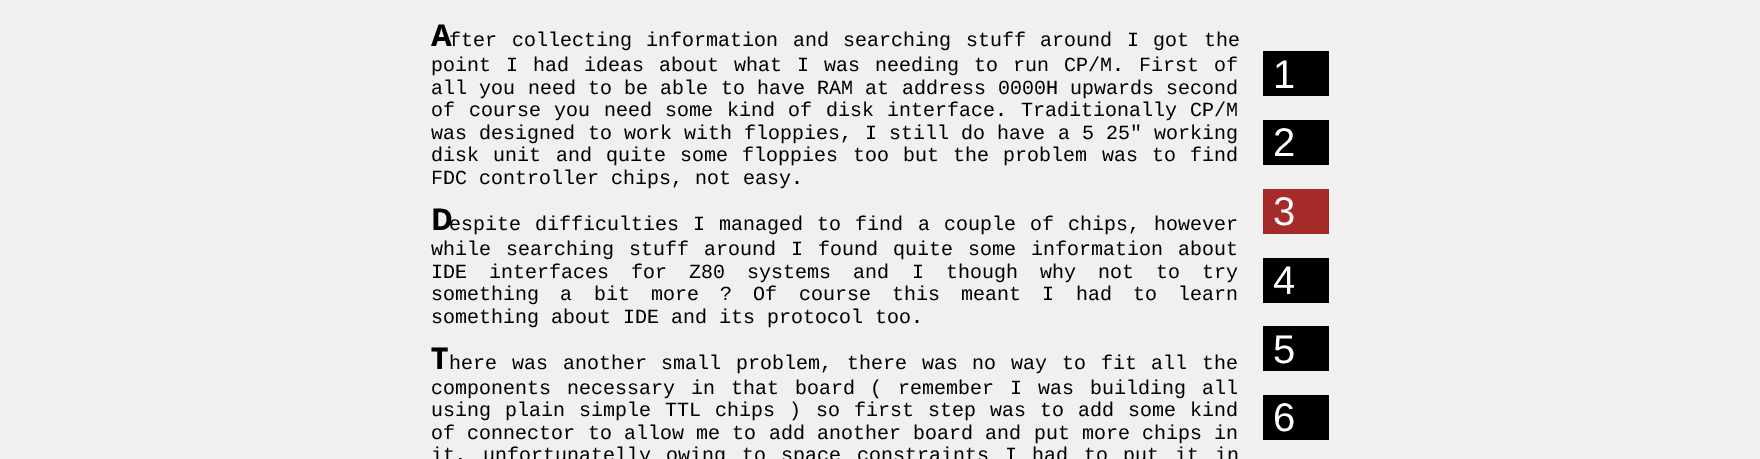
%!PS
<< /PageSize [1760 459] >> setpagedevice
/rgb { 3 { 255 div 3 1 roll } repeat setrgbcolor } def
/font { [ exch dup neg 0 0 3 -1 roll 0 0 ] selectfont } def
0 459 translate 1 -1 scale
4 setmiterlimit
240 240 240 rgb
0 0 1760 459 rectfill
[
  [1263 51 66 45 0 0 0]
  [1263 120 66 45 0 0 0]
  [1263 189 66 45 165 42 42]
  [1263 258 66 45 0 0 0]
  [1263 326 66 45 0 0 0]
  [1263 395 66 45 0 0 0]
] { aload pop rgb rectfill } forall
/NotoSans-Bold 30 font
431 46 moveto (A) show
/LiberationMono-Regular 20 font
449 46 moveto 2.5 0 32 (fter collecting information and searching stuff around I got the) widthshow
431 71 moveto 3 0 32 (point I had ideas about what I was needing to run CP/M. First of) widthshow
431 94 moveto 0.25 0 32 (all you need to be able to have RAM at address 0000H upwards second) widthshow
431 116 moveto 1.5 0 32 (of course you need some kind of disk interface. Traditionally CP/M) widthshow
431 139 moveto 0.25 0 32 (was designed to work with floppies, I still do have a 5 25" working) widthshow
431 161 moveto 2.25 0 32 (disk unit and quite some floppies too but the problem was to find) widthshow
431 184 moveto (FDC controller chips, not easy.) show
/NotoSans-Bold 30 font
431 230 moveto (D) show
/LiberationMono-Regular 20 font
449 230 moveto 2.1 0 32 (espite difficulties I managed to find a couple of chips, however) widthshow
431 255 moveto 3 0 32 (while searching stuff around I found quite some information about) widthshow
431 278 moveto 10.1 0 32 (IDE interfaces for Z80 systems and I though why not to try) widthshow
431 300 moveto 9.25 0 32 (something a bit more ? Of course this meant I had to learn) widthshow
431 323 moveto (something about IDE and its protocol too.) show
/NotoSans-Bold 30 font
431 369 moveto (T) show
/LiberationMono-Regular 20 font
449 369 moveto 2.75 0 32 (here was another small problem, there was no way to fit all the) widthshow
431 394 moveto 3.9 0 32 (components necessary in that board \( remember I was building all) widthshow
431 416 moveto 2.1 0 32 (using plain simple TTL chips \) so first step was to add some kind) widthshow
431 439 moveto 0.25 0 32 (of connector to allow me to add another board and put more chips in) widthshow
431 461 moveto 3.6 0 32 (it, unfortunatelly owing to space constraints I had to put it in) widthshow
/LiberationSans-Regular 40 font
255 255 255 rgb
[
  [(1) 1273 88]
  [(2) 1273 156]
  [(3) 1273 225]
  [(4) 1273 294]
  [(5) 1273 363]
  [(6) 1273 431]
] { aload pop moveto show } forall
showpage
